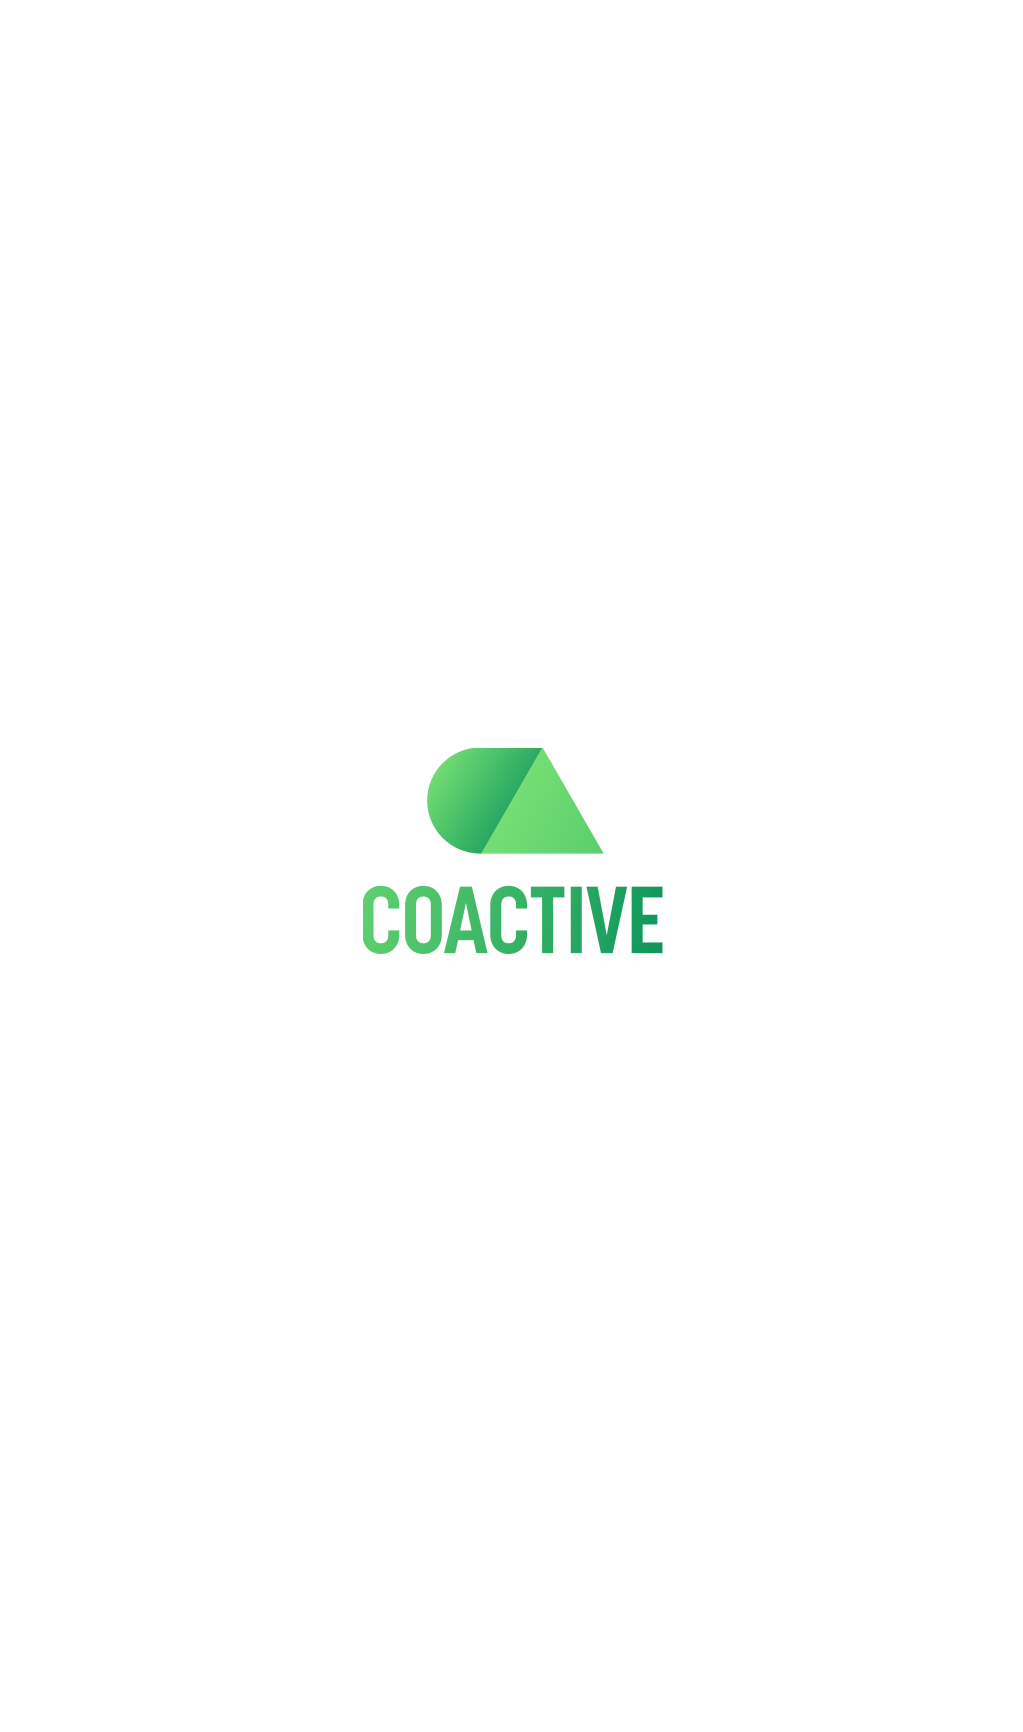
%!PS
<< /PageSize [1023 1732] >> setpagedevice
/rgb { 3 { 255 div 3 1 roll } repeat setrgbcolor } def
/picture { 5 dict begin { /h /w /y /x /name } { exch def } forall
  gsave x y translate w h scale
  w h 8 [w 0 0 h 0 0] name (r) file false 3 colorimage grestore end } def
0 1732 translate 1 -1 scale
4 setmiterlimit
255 255 255 rgb
0 0 1023 1732 rectfill
(img/1.rgb) 363 748 300 206 picture
showpage
